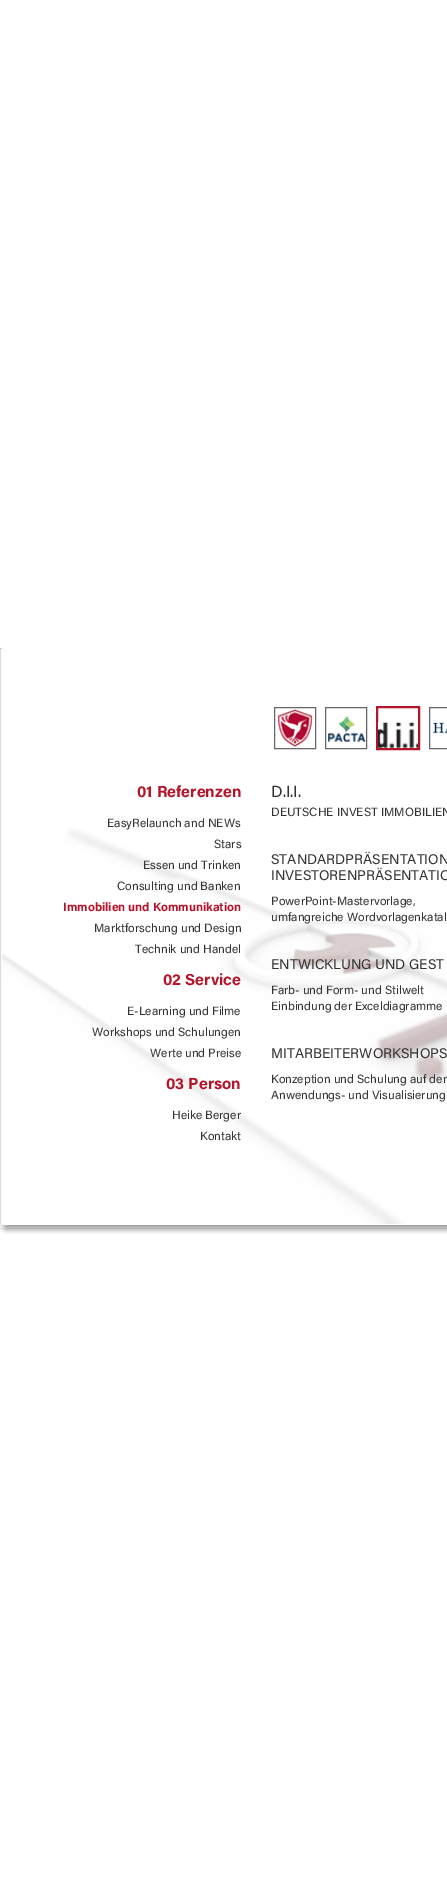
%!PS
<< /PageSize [447 1904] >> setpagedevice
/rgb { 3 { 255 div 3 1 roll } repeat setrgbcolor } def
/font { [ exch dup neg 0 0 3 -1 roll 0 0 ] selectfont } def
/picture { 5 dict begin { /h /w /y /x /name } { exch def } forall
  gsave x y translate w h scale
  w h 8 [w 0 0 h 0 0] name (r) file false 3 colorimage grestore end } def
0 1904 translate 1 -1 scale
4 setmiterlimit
255 255 255 rgb
0 0 447 1904 rectfill
(img/1.rgb) 0 648 447 586 picture
(img/2.rgb) 2 648 445 576 picture
102 102 102 rgb
274.5 707.5 41 41 rectstroke
(img/3.rgb) 277 709 36 38 picture
325.5 707.5 41 41 rectstroke
(img/4.rgb) 328 716 38 26 picture
181 21 43 rgb
2 setlinewidth
377 707 42 42 rectstroke
(img/5.rgb) 378 722 40 26 picture
102 102 102 rgb
1 setlinewidth
429.5 707.5 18 41 rectstroke
(img/6.rgb) 433 720 14 14 picture
/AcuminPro-Bold 16 font
181 21 43 rgb
137 797 moveto (01 Referenzen) show
/AcuminPro-Regular 12 font
51 51 51 rgb
[
  [(EasyRelaunch and NEWs) 107 827]
  [(Stars) 214 848]
  [(Essen und Trinken) 143 869]
  [(Consulting und Banken) 117 890]
] { aload pop moveto show } forall
/AcuminPro-Bold 12 font
181 21 43 rgb
63 911 moveto (Immobilien und Kommunikation) show
/AcuminPro-Regular 12 font
51 51 51 rgb
94 932 moveto (Marktforschung und Design) show
135 953 moveto (Technik und Handel) show
/AcuminPro-Bold 16 font
181 21 43 rgb
163 985 moveto (02 Service) show
/AcuminPro-Regular 12 font
51 51 51 rgb
[
  [(E-Learning und Filme) 127 1015]
  [(Workshops und Schulungen) 92 1036]
  [(Werte und Preise) 150 1057]
] { aload pop moveto show } forall
/AcuminPro-Bold 16 font
181 21 43 rgb
166 1089 moveto (03 Person) show
/AcuminPro-Regular 12 font
51 51 51 rgb
172 1119 moveto (Heike Berger) show
200 1140 moveto (Kontakt) show
/AcuminPro-Regular 16 font
271 797 moveto (D.I.I.) show
/AcuminPro-Regular 12 font
271 816 moveto (DEUTSCHE INVEST IMMOBILIEN) show
/AcuminPro-Regular 14 font
271 864 moveto (STANDARDPRÄSENTATION) show
271 880 moveto (INVESTORENPRÄSENTATIO) show
/AcuminPro-Regular 12 font
271 905 moveto (PowerPoint-Mastervorlage,) show
271 921 moveto (umfangreiche Wordvorlagenkatal) show
/AcuminPro-Regular 14 font
271 969 moveto (ENTWICKLUNG UND GEST) show
/AcuminPro-Regular 12 font
271 994 moveto (Farb- und Form- und Stilwelt) show
271 1010 moveto (Einbindung der Exceldiagramme) show
/AcuminPro-Regular 14 font
271 1058 moveto (MITARBEITERWORKSHOPS) show
/AcuminPro-Regular 12 font
271 1083 moveto (Konzeption und Schulung auf den) show
271 1099 moveto (Anwendungs- und Visualisierung) show
showpage
